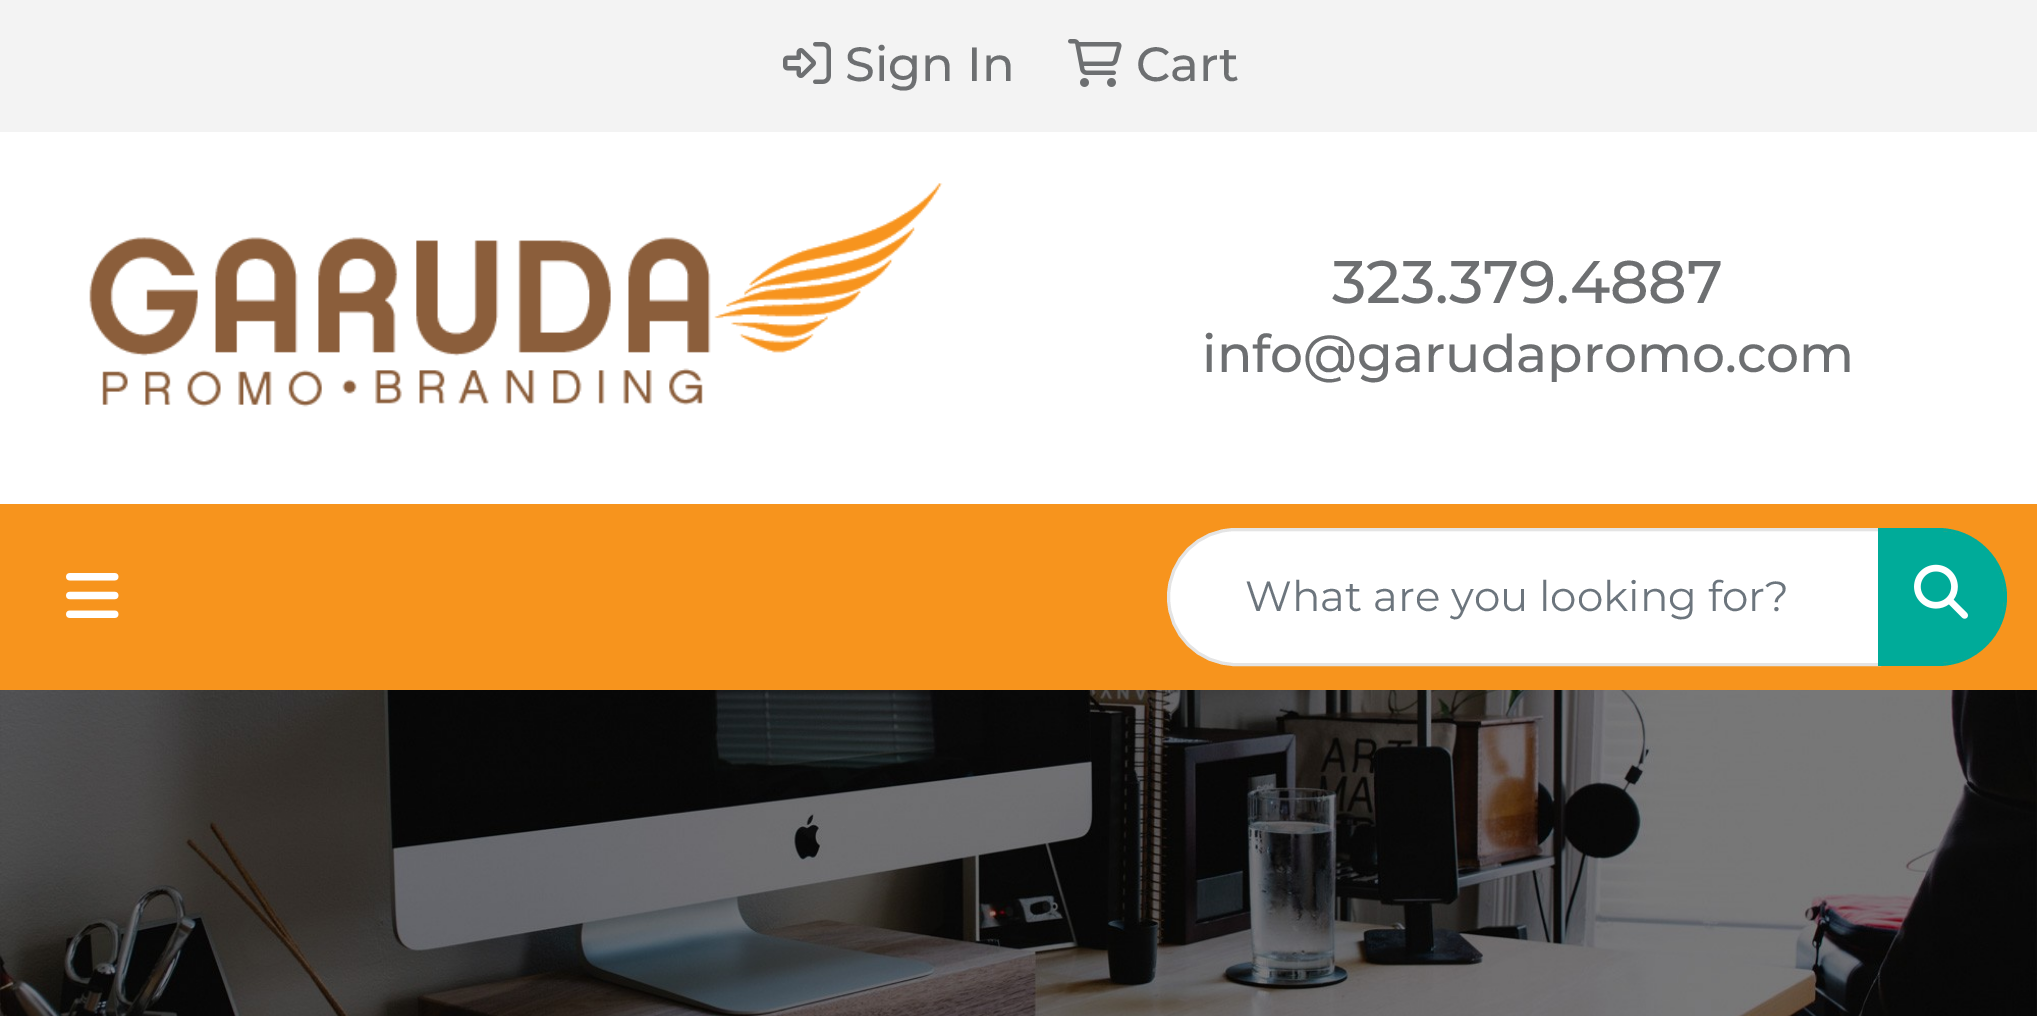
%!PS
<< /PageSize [2037 1016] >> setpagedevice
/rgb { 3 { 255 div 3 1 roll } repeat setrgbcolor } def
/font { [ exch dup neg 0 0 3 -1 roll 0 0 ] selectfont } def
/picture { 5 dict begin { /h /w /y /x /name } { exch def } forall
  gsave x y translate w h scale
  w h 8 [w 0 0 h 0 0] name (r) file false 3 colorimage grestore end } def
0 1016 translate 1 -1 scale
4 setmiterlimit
255 255 255 rgb
0 0 2037 1016 rectfill
243 243 243 rgb
0 0 2037 132 rectfill
(img/1.rgb) 783 42 48 42 picture
(img/2.rgb) 1068 39 54 48 picture
(img/3.rgb) 89 183 854 224 picture
247 148 29 rgb
0 504 2037 186 rectfill
(img/4.rgb) 66 573 53 45 picture
255 255 255 rgb
1236 529.5 moveto 1879.5 529.5 lineto 1879.5 664.5 lineto 1236 664.5 lineto 1198.5 664.5 1168.5 634.5 1168.5 597 curveto 1168.5 559.5 1198.5 529.5 1236 529.5 curveto closepath gsave fill grestore
228 228 228 rgb
3 setlinewidth
stroke
0 171 153 rgb
1878 531 moveto 1938 531 lineto 1974.5 531 2004 560.5 2004 597 curveto 2004 633.5 1974.5 663 1938 663 curveto 1878 663 lineto closepath fill
1878 528 moveto 1938 528 lineto 1976 528 2007 559 2007 597 curveto 2007 635 1976 666 1938 666 curveto 1878 666 lineto closepath 1878 531 moveto 1938 531 lineto 1974 531 2004 561 2004 597 curveto 2004 633 1974 663 1938 663 curveto 1878 663 lineto closepath eofill
(img/5.rgb) 1914 564 54 55 picture
(img/6.rgb) 0 690 2037 326 picture
/Montserrat-Medium 48 font
109 111 113 rgb
845 81 moveto (Sign In) show
1136 81 moveto (Cart) show
/Montserrat-Medium 60 font
1332 303 moveto (323.379.4887) show
/Montserrat-Medium 52 font
1202 372 moveto (info@garudapromo.com) show
/Montserrat-Regular 42 font
108 117 125 rgb
1245 611 moveto (What are you looking for?) show
showpage
